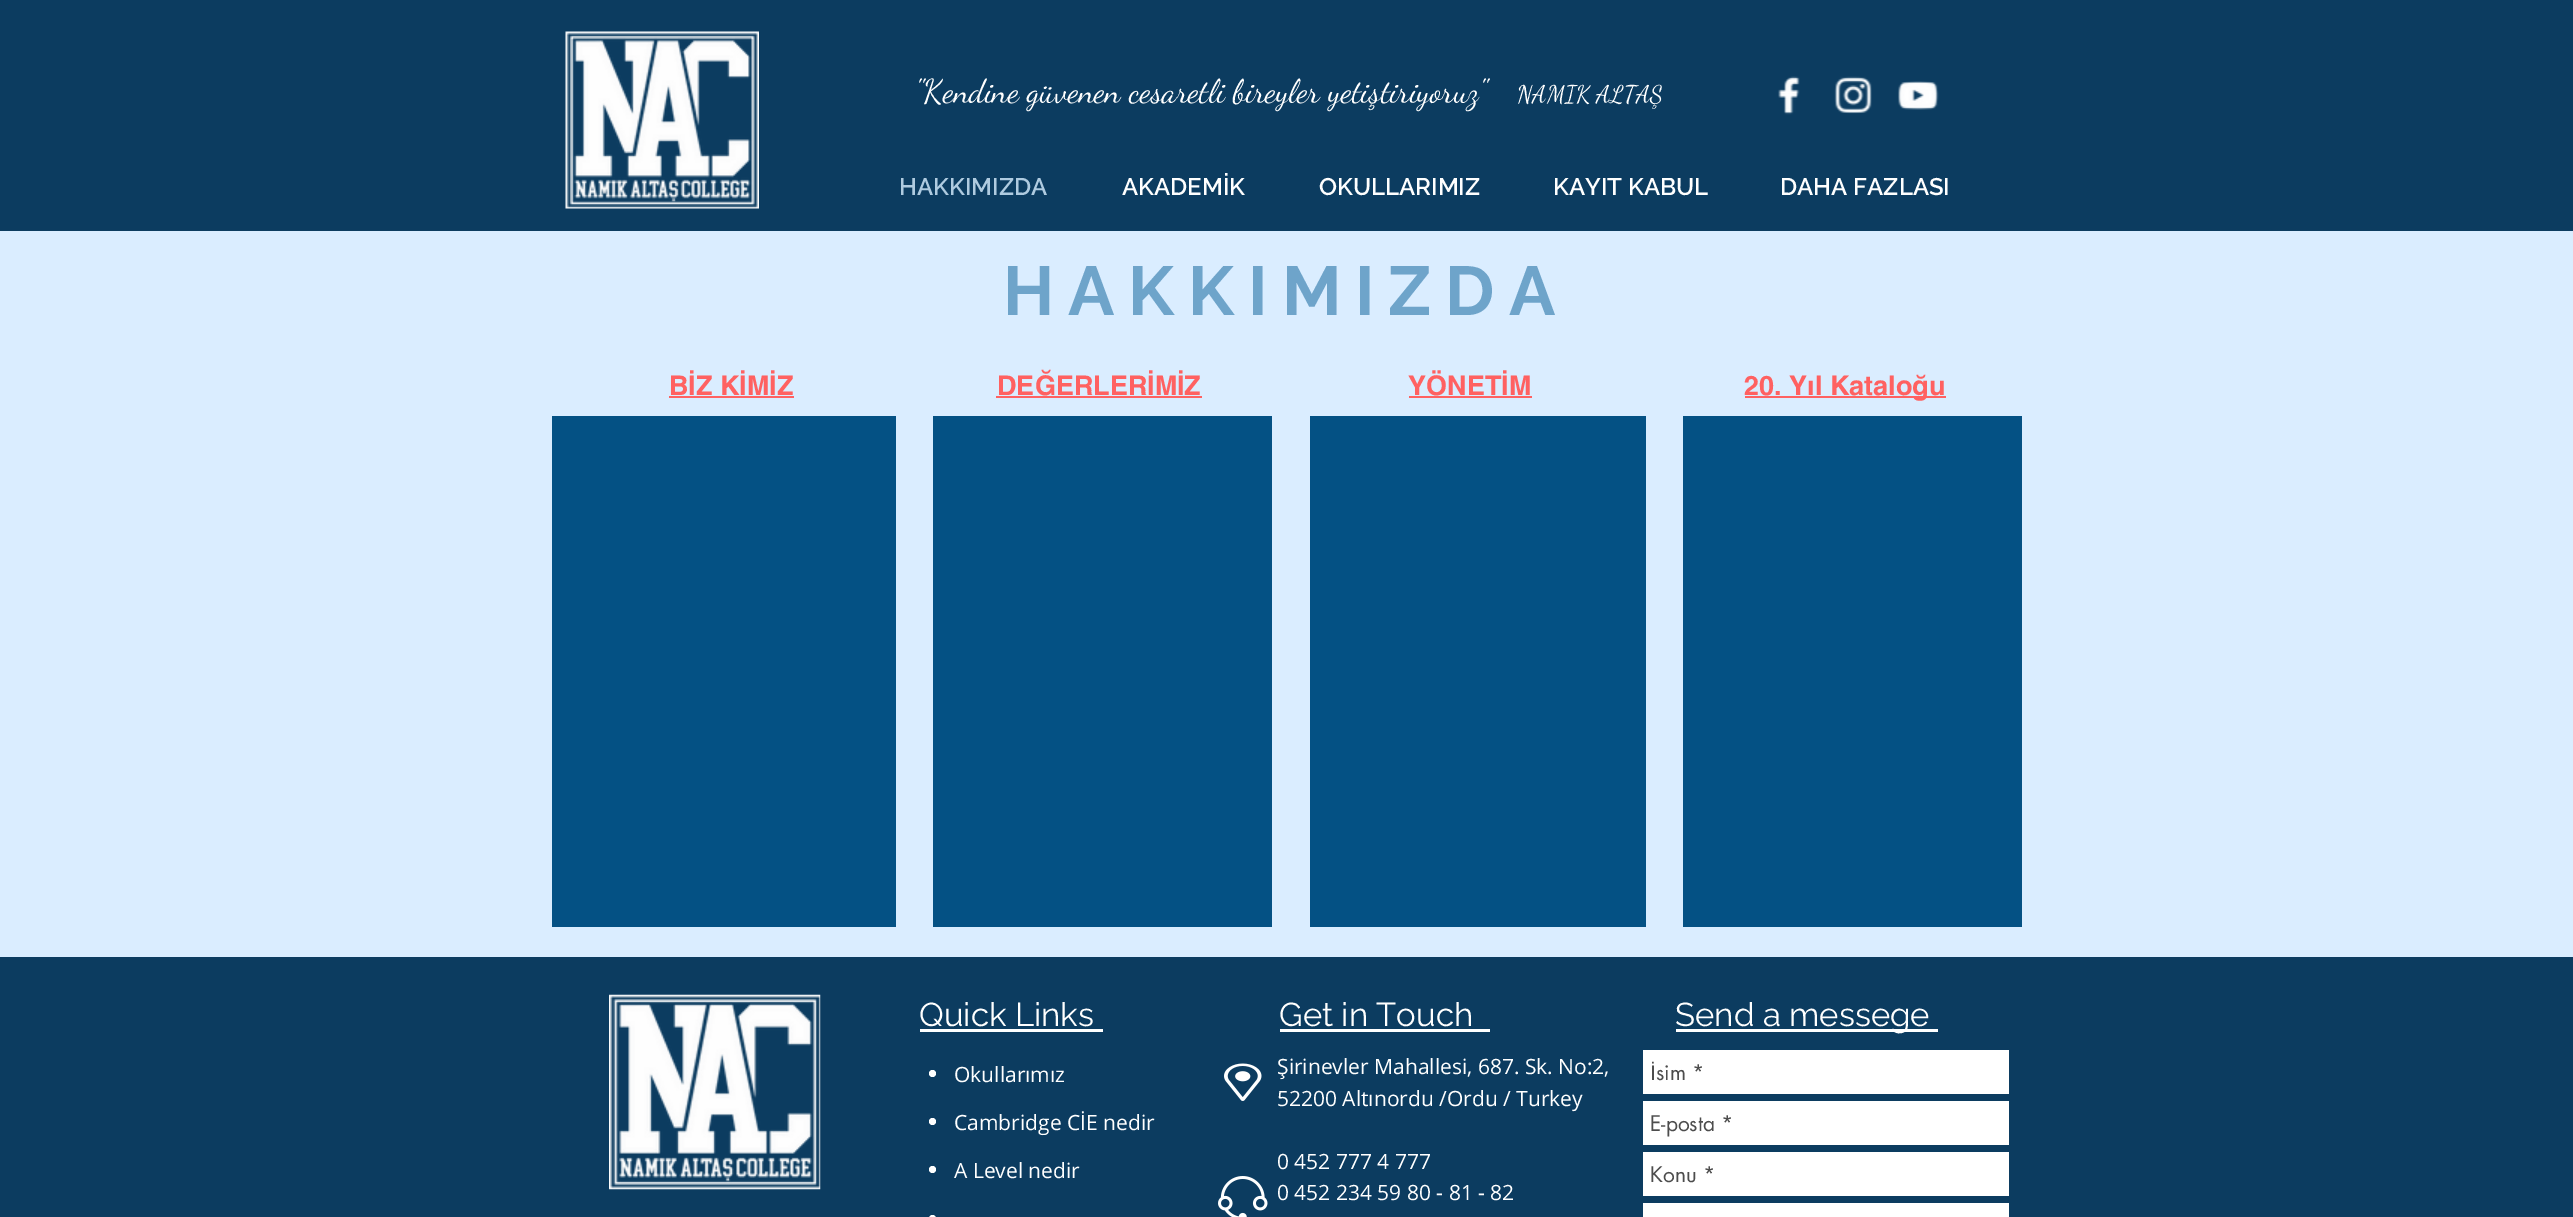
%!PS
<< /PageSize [2573 1217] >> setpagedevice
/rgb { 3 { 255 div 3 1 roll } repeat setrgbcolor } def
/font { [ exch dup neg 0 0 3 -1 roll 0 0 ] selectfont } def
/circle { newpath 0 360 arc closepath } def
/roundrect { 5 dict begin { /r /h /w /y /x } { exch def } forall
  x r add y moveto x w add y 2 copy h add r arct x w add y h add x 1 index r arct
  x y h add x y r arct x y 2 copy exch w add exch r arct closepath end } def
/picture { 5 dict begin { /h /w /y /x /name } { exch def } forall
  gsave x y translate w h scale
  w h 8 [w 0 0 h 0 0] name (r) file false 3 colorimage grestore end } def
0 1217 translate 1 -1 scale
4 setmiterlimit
218 237 255 rgb
0 0 2573 1217 rectfill
12 60 96 rgb
0 0 2573 231 rectfill
(img/1.rgb) 565 31 194 178 picture
(img/2.rgb) 1778 76 22 39 picture
(img/3.rgb) 1834 76 38 38 picture
(img/4.rgb) 1898 81 41 29 picture
[
  [669 396 125 2 255 97 97]
  [996 396 206 2 255 97 97]
  [1409 396 123 2 255 97 97]
  [1745 396 201 2 255 97 97]
  [552 416 344 511 4 81 132]
  [933 416 339 511 4 81 132]
  [1310 416 336 511 4 81 132]
  [1683 416 339 511 4 81 132]
  [0 957 2573 260 12 60 96]
] { aload pop rgb rectfill } forall
(img/5.rgb) 609 994 212 196 picture
[
  [920 1029 183 3 255 255 255]
  [1280 1029 210 3 255 255 255]
  [1676 1029 262 3 255 255 255]
] { aload pop rgb rectfill } forall
932.5 1073.5 3.5 circle fill
932.5 1121.5 3.5 circle fill
932.5 1169.5 3.5 circle fill
929 1215 7 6 3.5 roundrect fill
(img/6.rgb) 1224 1063 38 38 picture
[
  [1643 1050 366 44 255 255 255]
  [1643 1101 366 44 255 255 255]
  [1643 1152 366 44 255 255 255]
  [1643 1203 366 14 255 255 255]
] { aload pop rgb rectfill } forall
(img/7.rgb) 1218 1176 50 41 picture
/DancingScript-Regular 33 font
915 102 moveto ("Kendine güvenen cesaretli bireyler yetiştiriyoruz") show
/DancingScript-Regular 24 font
1517 102 moveto (NAMIK ALTAŞ) show
/Raleway-SemiBold 24 font
175 203 224 rgb
899 195 moveto (HAKKIMIZDA) show
255 255 255 rgb
[
  [(AKADEMİK) 1122 195]
  [(OKULLARIMIZ) 1319 195]
  [(KAYIT KABUL) 1553 195]
  [(DAHA FAZLASI) 1780 195]
] { aload pop moveto show } forall
/Raleway-Bold 69 font
110 164 202 rgb
1003 315 moveto 13.75 0 (HAKKIMIZDA) ashow
/helvetica-Bold 27 font
255 97 97 rgb
[
  [(BİZ KİMİZ) 669 395]
  [(DEĞERLERİMİZ) 997 395]
  [(YÖNETİM) 1408 395]
  [(20. Yıl Kataloğu) 1744 395]
] { aload pop moveto show } forall
/Raleway-Regular 33 font
255 255 255 rgb
[
  [(Quick Links) 919 1026]
  [(Get in Touch) 1279 1026]
  [(Send a messege) 1675 1026]
] { aload pop moveto show } forall
/OpenSans-Regular 21 font
[
  [(Okullarımız) 954 1082]
  [(Cambridge CİE nedir) 954 1130]
  [(A Level nedir) 954 1178]
  [(Şirinevler Mahallesi, 687. Sk. No:2,) 1277 1074]
  [(52200 Altınordu /Ordu / Turkey) 1277 1106]
  [(0 452 777 4 777) 1277 1169]
  [(0 452 234 59 80 - 81 - 82) 1277 1200]
] { aload pop moveto show } forall
/LiberationSans-Regular 21 font
77 77 77 rgb
1650 1080 moveto (İ) show
/futura-Regular 21 font
[
  [(sim *) 1656 1080]
  [(E-posta *) 1650 1131]
  [(Konu *) 1650 1182]
] { aload pop moveto show } forall
showpage
